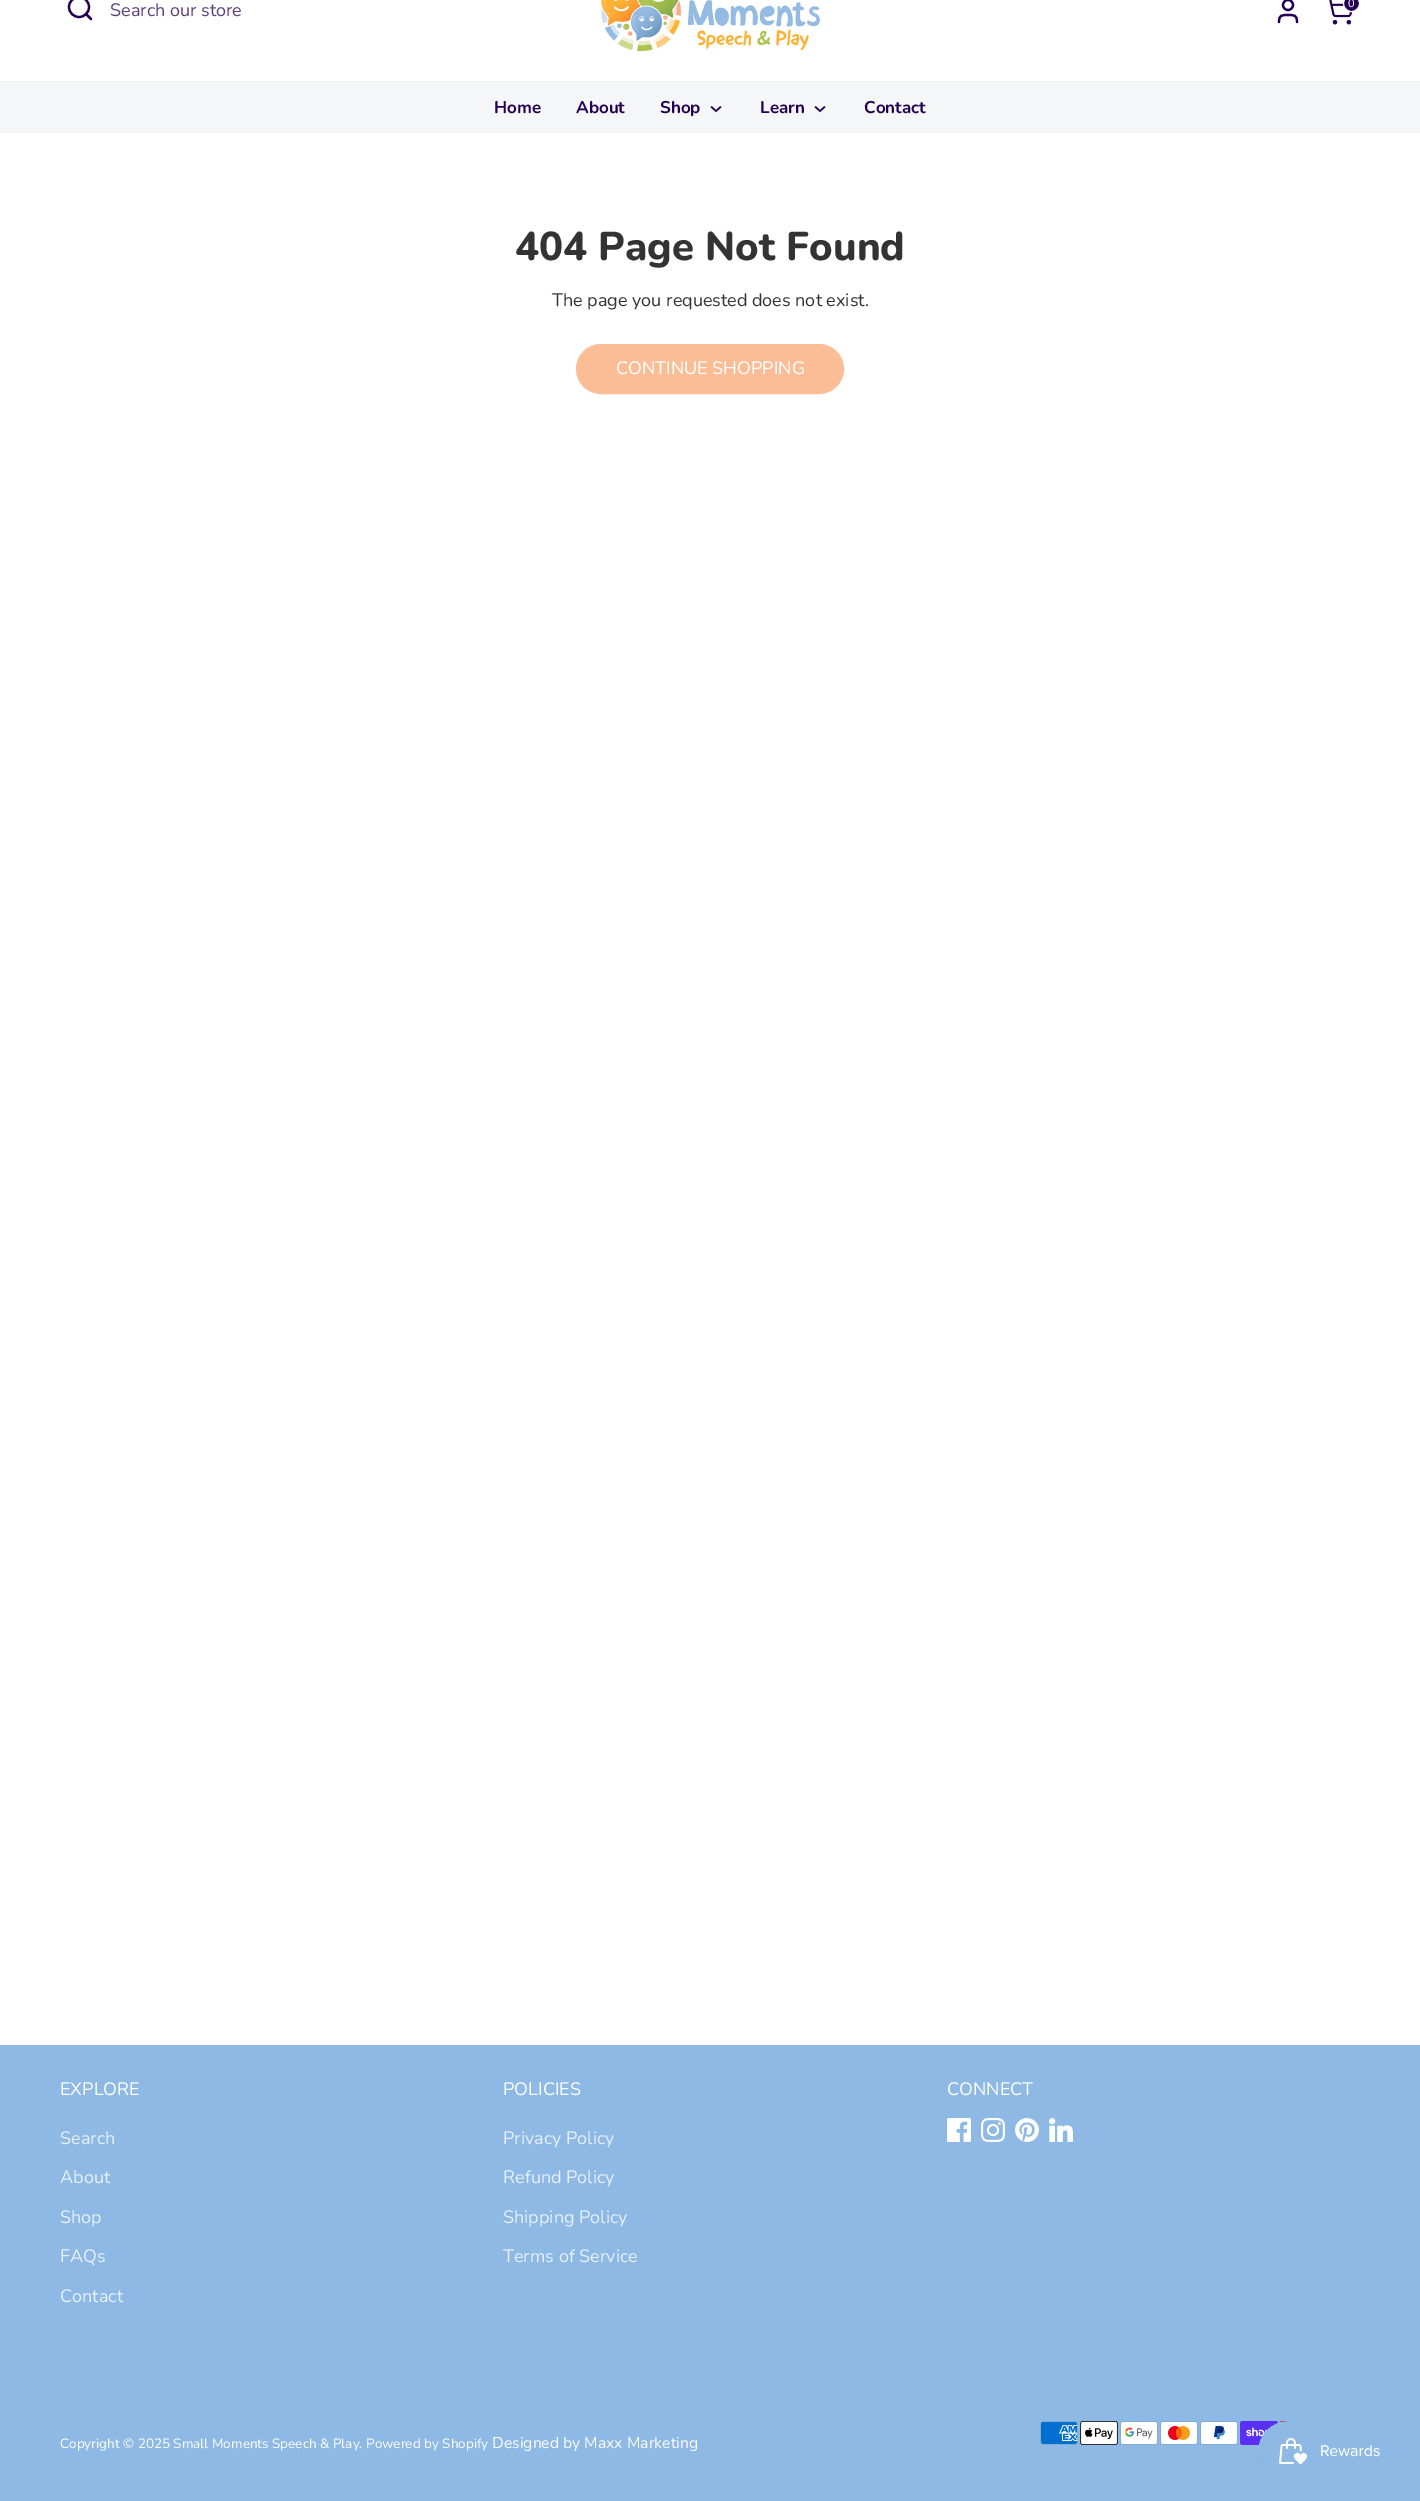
%!PS
<< /PageSize [1420 2501] >> setpagedevice
/rgb { 3 { 255 div 3 1 roll } repeat setrgbcolor } def
/font { [ exch dup neg 0 0 3 -1 roll 0 0 ] selectfont } def
/circle { newpath 0 360 arc closepath } def
/roundrect { 5 dict begin { /r /h /w /y /x } { exch def } forall
  x r add y moveto x w add y 2 copy h add r arct x w add y h add x 1 index r arct
  x y h add x y r arct x y 2 copy exch w add exch r arct closepath end } def
/picture { 5 dict begin { /h /w /y /x /name } { exch def } forall
  gsave x y translate w h scale
  w h 8 [w 0 0 h 0 0] name (r) file false 3 colorimage grestore end } def
0 2501 translate 1 -1 scale
4 setmiterlimit
255 255 255 rgb
0 0 1420 2501 rectfill
35 0 81 rgb
2.2 setlinewidth
79 7 10 circle stroke
1 setlinecap
1 setlinejoin
91 19 moveto 86 14 lineto stroke
(img/1.rgb) 600 0 221 52 picture
1297 22 moveto 1297 15 1294.5 15 1288 15 curveto 1281.5 15 1279 15 1279 22 curveto stroke
0 setlinecap
0 setlinejoin
1288 5 5 circle stroke
(img/2.rgb) 1329 0 24 25 picture
1351.5 3.5 8 circle gsave fill grestore
255 255 255 rgb
1 setlinewidth
stroke
244 246 248 rgb
0 81 1420 52 rectfill
35 0 81 rgb
1.5 setlinewidth
1 setlinecap
711.5 107 moveto 716 111 lineto 720.5 107 lineto stroke
815.5 107 moveto 820 111 lineto 824.5 107 lineto stroke
251 189 149 rgb
1 setlinewidth
0 setlinecap
576.5 344.5 267 49 24.5 roundrect stroke
577 345 266 48 24 roundrect fill
141 185 228 rgb
0 2045 1420 456 rectfill
(img/3.rgb) 947 2118 24 24 picture
(img/4.rgb) 981 2118 24 24 picture
(img/5.rgb) 1015 2118 24 24 picture
(img/6.rgb) 1049 2118 24 24 picture
(img/7.rgb) 1040 2421 38 24 picture
(img/8.rgb) 1080 2421 38 24 picture
(img/9.rgb) 1120 2421 38 24 picture
(img/10.rgb) 1160 2421 38 24 picture
(img/11.rgb) 1200 2421 38 24 picture
(img/12.rgb) 1240 2421 38 24 picture
(img/13.rgb) 1280 2421 8 2 picture
(img/14.rgb) 1258 2421 122 44 picture
/Nunito-Regular 18 font
90 64 125 rgb
110 16 moveto (Search our store) show
/Nunito-Regular 11 font
255 255 255 rgb
1348 7 moveto (0) show
/Nunito-Bold 17 font
35 0 81 rgb
[
  [(Home) 494 113]
  [(About) 576 113]
  [(Shop) 660 113]
  [(Learn) 760 113]
  [(Contact) 864 113]
] { aload pop moveto show } forall
/Nunito-ExtraBold 40.1 font
51 51 51 rgb
515 260 moveto (404 Page Not Found) show
/Nunito-Regular 18 font
552 306 moveto (The page you requested does not exist.) show
255 255 255 rgb
616 374 moveto (CONTINUE SHOPPING) show
60 2095 moveto (EXPLORE) show
232 241 250 rgb
[
  [(Search) 60 2144]
  [(About) 60 2183]
  [(Shop) 60 2223]
  [(FAQs) 60 2262]
  [(Contact) 60 2302]
] { aload pop moveto show } forall
255 255 255 rgb
503 2095 moveto (POLICIES) show
232 241 250 rgb
[
  [(Privacy Policy) 503 2144]
  [(Refund Policy) 503 2183]
  [(Shipping Policy) 503 2223]
  [(Terms of Service) 503 2262]
] { aload pop moveto show } forall
255 255 255 rgb
947 2095 moveto (CONNECT) show
/Nunito-Regular 13.5 font
60 2448 moveto (Copyright © 2025 Small Moments Speech & Play. Powered by Shopify) show
/Nunito-Regular 15.75 font
492 2448 moveto (Designed by Maxx Marketing) show
showpage
